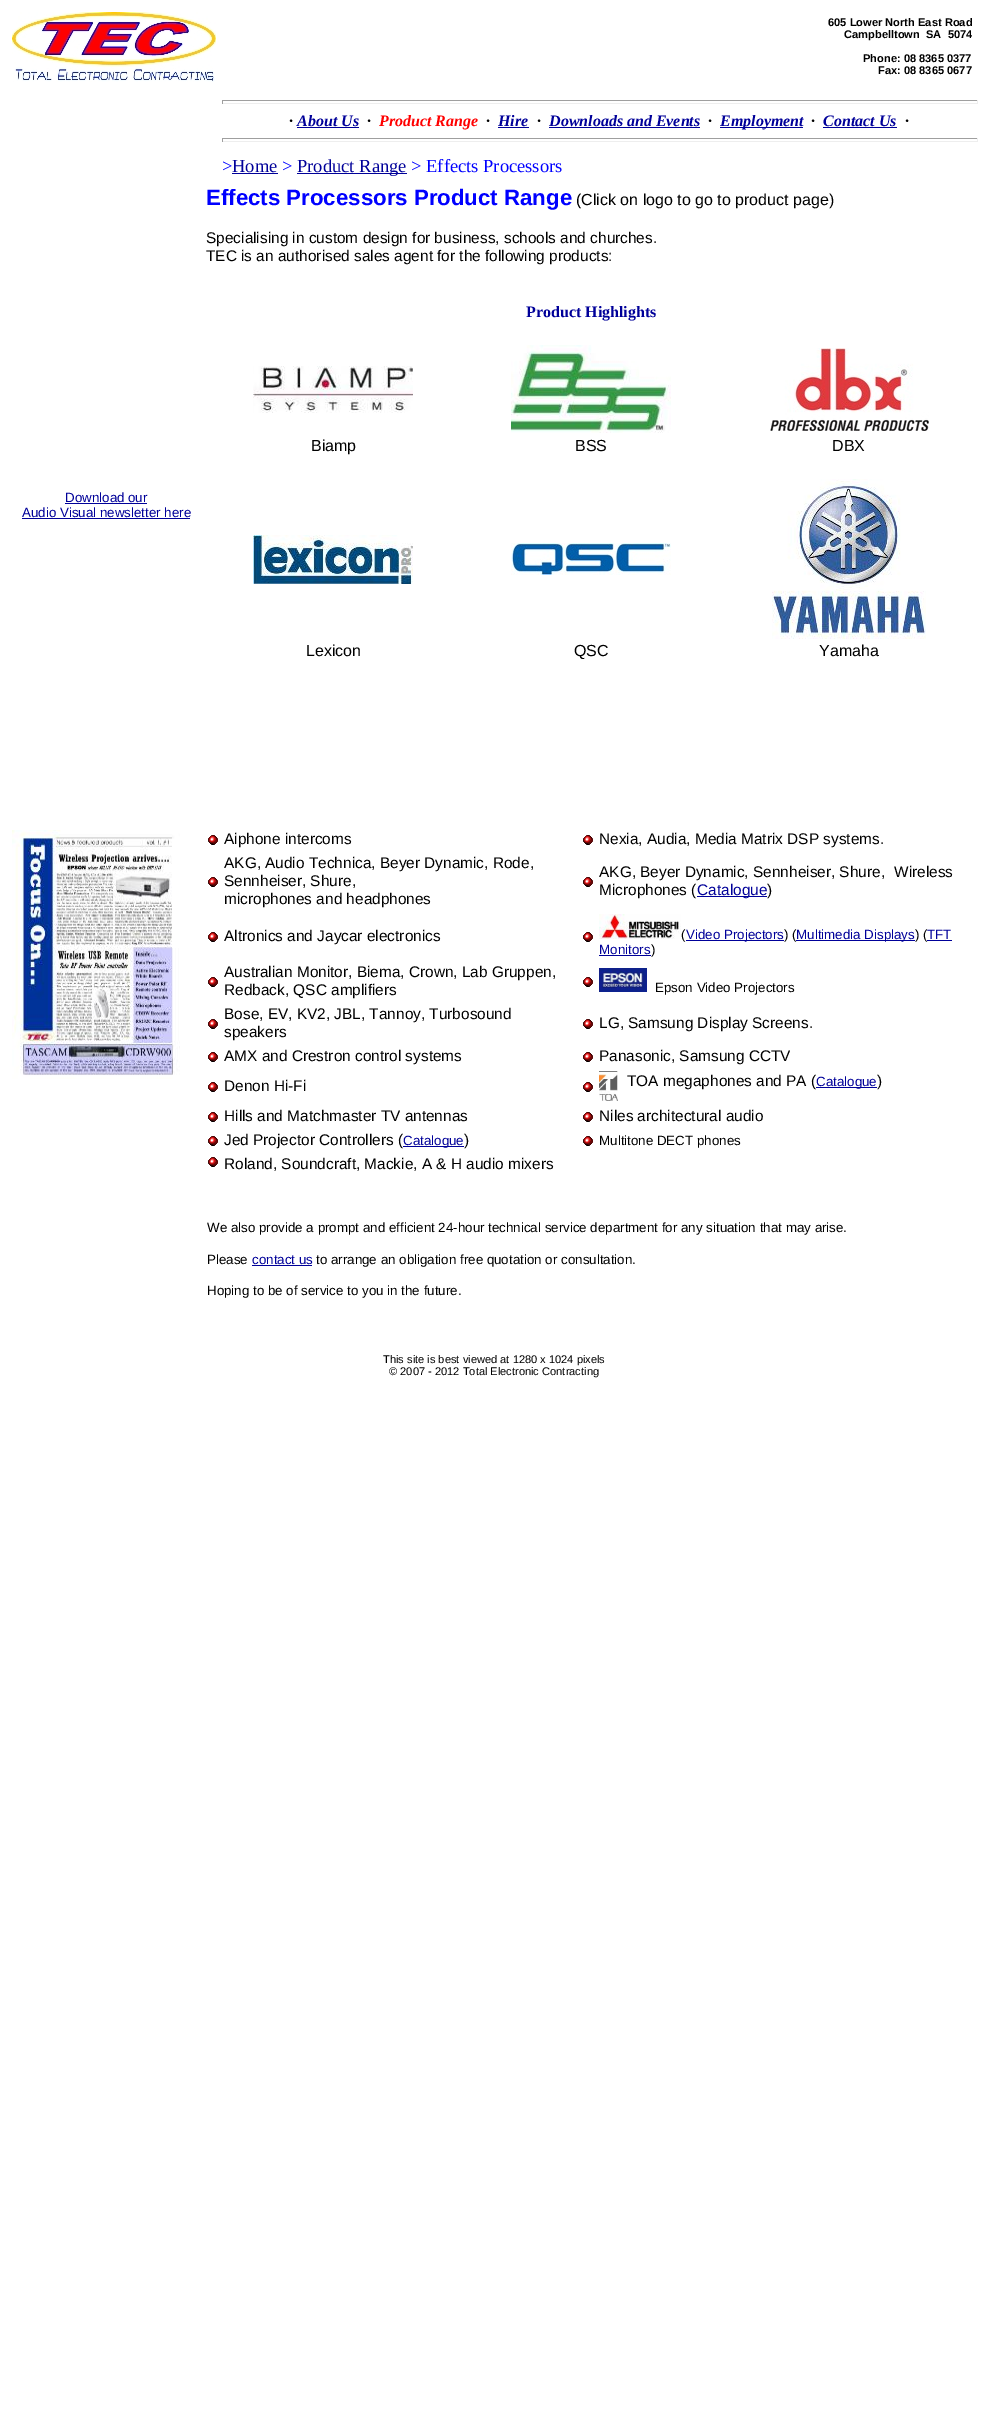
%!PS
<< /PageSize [988 2429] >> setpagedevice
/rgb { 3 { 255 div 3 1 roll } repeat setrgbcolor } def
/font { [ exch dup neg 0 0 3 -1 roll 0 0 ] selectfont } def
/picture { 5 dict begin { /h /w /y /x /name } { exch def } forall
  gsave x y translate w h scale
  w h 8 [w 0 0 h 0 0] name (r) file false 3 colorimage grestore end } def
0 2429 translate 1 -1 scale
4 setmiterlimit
255 255 255 rgb
0 0 988 2429 rectfill
(img/1.rgb) 12 12 204 70 picture
[
  [222 100 756 1 159 159 159]
  [977 100 1 4 238 238 238]
  [222 103 756 1 238 238 238]
  [222 100 1 4 159 159 159]
  [297 127 62 1 0 0 153]
  [498 127 31 1 0 0 153]
  [549 127 151 1 0 0 153]
  [720 127 83 1 0 0 153]
  [823 127 74 1 0 0 153]
  [222 138 756 1 159 159 159]
  [977 138 1 4 238 238 238]
  [222 141 756 1 238 238 238]
  [222 138 1 4 159 159 159]
  [232 173 46 1 0 0 153]
  [297 173 110 1 0 0 153]
  [65 503 82 1 0 0 153]
  [22 518 168 1 0 0 153]
] { aload pop rgb rectfill } forall
(img/2.rgb) 253 366 160 47 picture
(img/3.rgb) 511 345 160 88 picture
(img/4.rgb) 770 348 159 83 picture
(img/5.rgb) 253 535 160 49 picture
(img/6.rgb) 511 543 160 32 picture
(img/7.rgb) 772 479 154 160 picture
(img/8.rgb) 12 830 168 249 picture
(img/9.rgb) 208 835 10 10 picture
(img/9.rgb) 583 835 10 10 picture
(img/9.rgb) 208 877 10 10 picture
(img/9.rgb) 583 877 10 10 picture
(img/9.rgb) 208 932 10 10 picture
(img/9.rgb) 583 932 10 10 picture
(img/10.rgb) 599 914 82 25 picture
686 940 98 1 rectfill
599 955 52 1 rectfill
(img/9.rgb) 208 977 10 10 picture
(img/9.rgb) 583 977 10 10 picture
(img/11.rgb) 599 968 48 24 picture
(img/9.rgb) 208 1019 10 10 picture
(img/9.rgb) 583 1019 10 10 picture
(img/9.rgb) 208 1052 10 10 picture
(img/9.rgb) 583 1052 10 10 picture
(img/9.rgb) 208 1082 10 10 picture
(img/9.rgb) 583 1082 10 10 picture
(img/12.rgb) 599 1071 19 30 picture
(img/9.rgb) 208 1112 10 10 picture
(img/9.rgb) 583 1112 10 10 picture
(img/9.rgb) 208 1136 10 10 picture
(img/9.rgb) 583 1136 10 10 picture
(img/9.rgb) 208 1157 10 10 picture
252 1265 60 1 rectfill
/LiberationSans-Bold 11.1 font
0 0 0 rgb
[
  [(605 Lower North East Road) 828 26]
  [(Campbelltown) 844 38]
  [(SA  5074) 926 38]
  [(Phone: 08 8365 0377) 863 62]
  [(Fax: 08 8365 0677) 878 74]
] { aload pop moveto show } forall
/LiberationSerif-BoldItalic 16 font
289 126 moveto (·) show
0 0 153 rgb
297 126 moveto (About Us) show
0 0 0 rgb
367 126 moveto (·) show
255 0 0 rgb
379 126 moveto (Product Range) show
0 0 0 rgb
486 126 moveto (·) show
0 0 153 rgb
498 126 moveto (Hire) show
0 0 0 rgb
537 126 moveto (·) show
0 0 153 rgb
549 126 moveto (Downloads and Events) show
0 0 0 rgb
708 126 moveto (·) show
0 0 153 rgb
720 126 moveto (Employment) show
0 0 0 rgb
811 126 moveto (·) show
0 0 153 rgb
823 126 moveto (Contact Us) show
0 0 0 rgb
905 126 moveto (·) show
/LiberationSerif-Regular 18.5 font
0 0 255 rgb
222 172 moveto (>) show
0 0 153 rgb
232 172 moveto (Home) show
0 0 255 rgb
282 172 moveto (>) show
0 0 153 rgb
297 172 moveto (Product Range) show
0 0 255 rgb
411 172 moveto (> Effects Processors) show
/LiberationSans-Regular 13.35 font
0 0 153 rgb
65 502 moveto (Download our) show
22 517 moveto (Audio Visual newsletter here) show
/LiberationSans-Bold 22.25 font
0 0 255 rgb
206 205 moveto (Effects Processors Product Range) show
/LiberationSans-Regular 16 font
0 0 0 rgb
576 205 moveto (\(Click on logo to go to product page\)) show
/LiberationSans-Regular 15.4 font
206 243 moveto (Specialising in custom design for business, schools and churches.) show
206 261 moveto (TEC is an authorised sales agent for the following products:) show
/LiberationSerif-Bold 16 font
0 0 153 rgb
526 317 moveto (Product Highlights) show
/LiberationSans-Regular 16 font
0 0 0 rgb
[
  [(Biamp) 311 451]
  [(BSS) 575 451]
  [(DBX) 832 451]
  [(Lexicon) 306 656]
  [(QSC) 574 656]
  [(Yamaha) 819 656]
] { aload pop moveto show } forall
/LiberationSans-Regular 15.4 font
[
  [(Aiphone intercoms) 224 844]
  [(Nexia, Audia, Media Matrix DSP systems.) 599 844]
  [(AKG, Audio Technica, Beyer Dynamic, Rode,) 224 868]
  [(Sennheiser, Shure,) 224 886]
  [(microphones and headphones) 224 904]
  [(AKG, Beyer Dynamic, Sennheiser, Shure,) 599 877]
  [(Wireless) 894 877]
  [(Microphones \() 599 895]
] { aload pop moveto show } forall
0 0 153 rgb
697 896 70 1 rectfill
697 895 moveto (Catalogue) show
0 0 0 rgb
767 895 moveto (\)) show
224 941 moveto (Altronics and Jaycar electronics) show
/LiberationSans-Regular 13.35 font
681 939 moveto (\() show
0 0 153 rgb
686 939 moveto (Video Projectors) show
0 0 0 rgb
784 939 moveto (\) \() show
0 0 153 rgb
796 940 119 1 rectfill
796 939 moveto (Multimedia Displays) show
0 0 0 rgb
915 939 moveto (\) \() show
0 0 153 rgb
927 940 25 1 rectfill
927 939 moveto (TFT) show
599 954 moveto (Monitors) show
0 0 0 rgb
651 954 moveto (\)) show
/LiberationSans-Regular 15.4 font
224 977 moveto (Australian Monitor, Biema, Crown, Lab Gruppen,) show
224 995 moveto (Redback, QSC amplifiers) show
/LiberationSans-Regular 13.35 font
655 992 moveto (Epson Video Projectors) show
/LiberationSans-Regular 15.4 font
[
  [(Bose, EV, KV2, JBL, Tannoy, Turbosound) 224 1019]
  [(speakers) 224 1037]
  [(LG, Samsung Display Screens.) 599 1028]
  [(AMX and Crestron control systems) 224 1061]
  [(Panasonic, Samsung CCTV) 599 1061]
  [(Denon Hi-Fi) 224 1091]
  [(TOA megaphones and PA \() 627 1086]
] { aload pop moveto show } forall
0 0 153 rgb
816 1087 61 1 rectfill
/LiberationSans-Regular 13.35 font
816 1086 moveto (Catalogue) show
/LiberationSans-Regular 15.4 font
0 0 0 rgb
[
  [(\)) 877 1086]
  [(Hills and Matchmaster TV antennas) 224 1121]
  [(Niles architectural audio) 599 1121]
  [(Jed Projector Controllers \() 224 1145]
] { aload pop moveto show } forall
0 0 153 rgb
403 1146 61 1 rectfill
/LiberationSans-Regular 13.35 font
403 1145 moveto (Catalogue) show
/LiberationSans-Regular 15.4 font
0 0 0 rgb
464 1145 moveto (\)) show
/LiberationSans-Regular 13.35 font
599 1145 moveto (Multitone DECT phones) show
/LiberationSans-Regular 15.4 font
224 1169 moveto (Roland, Soundcraft, Mackie, A & H audio mixers) show
/LiberationSans-Regular 13.35 font
207 1232 moveto (We also provide a prompt and efficient 24-hour technical service department for any situation that may arise.) show
207 1264 moveto (Please) show
0 0 153 rgb
252 1264 moveto (contact us) show
0 0 0 rgb
[
  [(to arrange an obligation free quotation or) 316 1264]
  [(consultation.) 561 1264]
  [(Hoping to be of service to you in the future.) 207 1295]
] { aload pop moveto show } forall
/LiberationSans-Regular 11.1 font
383 1363 moveto (This site is best viewed at 1280 x 1024 pixels) show
389 1375 moveto (© 2007 - 2012 Total Electronic Contracting) show
showpage
